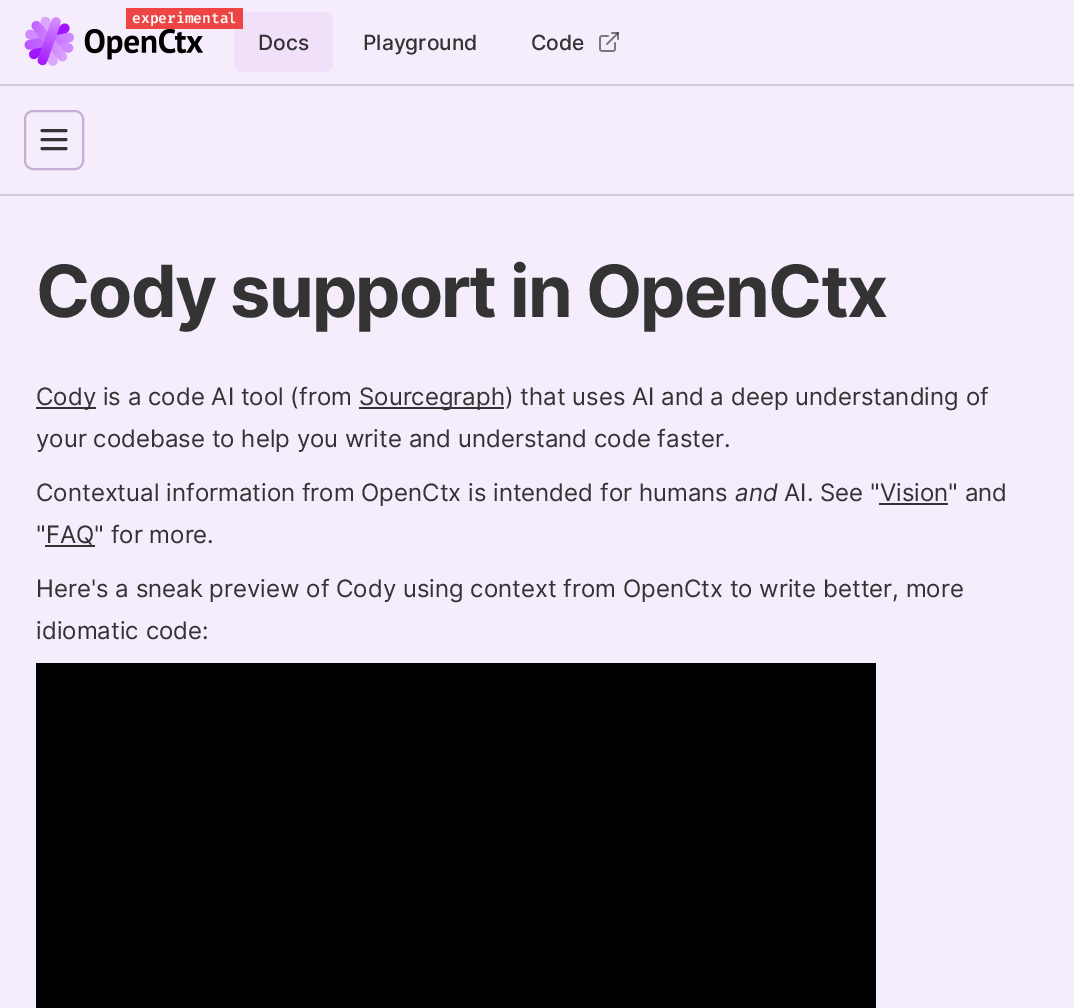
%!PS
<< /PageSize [1074 1008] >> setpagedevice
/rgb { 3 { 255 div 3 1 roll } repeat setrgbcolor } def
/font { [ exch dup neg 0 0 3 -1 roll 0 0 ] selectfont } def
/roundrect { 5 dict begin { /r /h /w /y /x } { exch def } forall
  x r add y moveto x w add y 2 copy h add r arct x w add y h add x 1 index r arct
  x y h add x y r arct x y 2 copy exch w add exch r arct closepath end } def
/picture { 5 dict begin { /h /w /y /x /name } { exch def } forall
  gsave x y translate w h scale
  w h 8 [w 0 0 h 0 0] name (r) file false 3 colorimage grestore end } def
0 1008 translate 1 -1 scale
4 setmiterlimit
246 237 252 rgb
0 0 1074 1008 rectfill
212 204 217 rgb
0 84 1074 2 rectfill
(img/1.rgb) 24 17 179 49 picture
240 224 250 rgb
234 12 99 60 9 roundrect fill
239 68 68 rgb
126 8 117 21 rectfill
(img/2.rgb) 599 32 20 20 picture
212 204 217 rgb
0 194 1074 2 rectfill
197 175 212 rgb
2 setlinewidth
25 111 58 58 8 roundrect stroke
51 51 51 rgb
3 setlinewidth
1 setlinecap
1 setlinejoin
42 139.5 moveto 66 139.5 lineto 42 130.5 moveto 66 130.5 lineto 42 148.5 moveto 66 148.5 lineto stroke
[
  [36 407 60 2 51 51 51]
  [359 407 145 2 51 51 51]
  [879 503 69 2 51 51 51]
  [45 545 50 2 51 51 51]
  [36 663 840 345 0 0 0]
] { aload pop rgb rectfill } forall
/FiraCode-SemiBold 14.25 font
250 250 250 rgb
132 23 moveto (experimental) show
/Inter-Medium 21 font
51 51 51 rgb
[
  [(Docs) 258 50]
  [(Playground) 363 50]
  [(Code) 531 50]
] { aload pop moveto show } forall
/Inter-Bold 72 font
36 317 moveto -1.8 0 (Cody support in OpenCtx) ashow
/Inter-Regular 24 font
[
  [(Cody is a code AI tool \(from) 36 405]
  [(Sourcegraph\) that uses AI and a deep understanding of) 359 405]
  [(your codebase to help you write and understand code faster.) 36 447]
  [(Contextual information from OpenCtx is intended for humans) 36 501]
] { aload pop moveto show } forall
/Inter-Italic 24 font
735 501 moveto (and) show
/Inter-Regular 24 font
[
  [(AI. See "Vision" and) 784 501]
  [("FAQ" for more.) 36 543]
  [(Here's a sneak preview of Cody using context from OpenCtx to write better, more) 36 597]
  [(idiomatic code:) 36 639]
] { aload pop moveto show } forall
showpage
